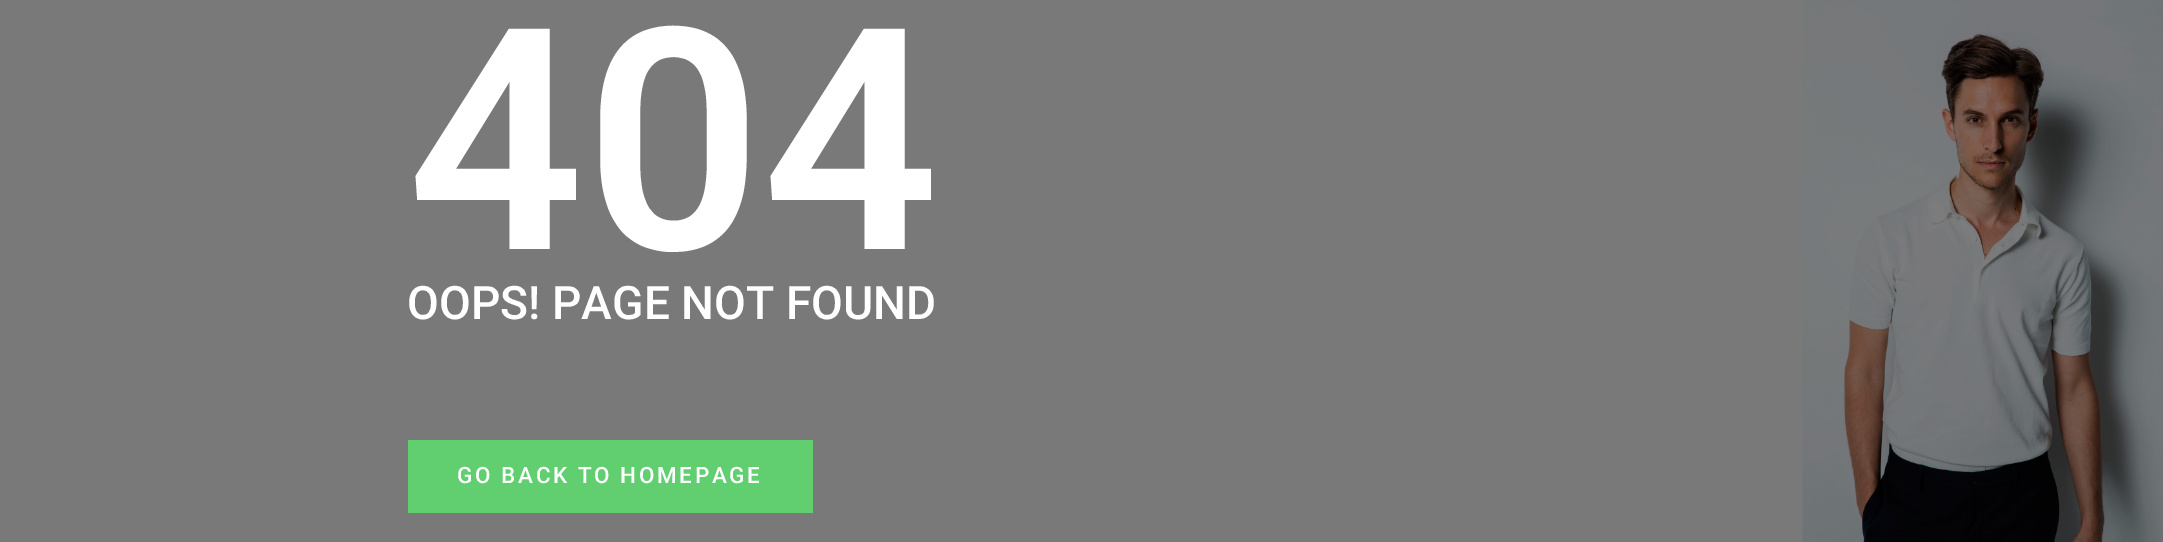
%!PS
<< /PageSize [2163 542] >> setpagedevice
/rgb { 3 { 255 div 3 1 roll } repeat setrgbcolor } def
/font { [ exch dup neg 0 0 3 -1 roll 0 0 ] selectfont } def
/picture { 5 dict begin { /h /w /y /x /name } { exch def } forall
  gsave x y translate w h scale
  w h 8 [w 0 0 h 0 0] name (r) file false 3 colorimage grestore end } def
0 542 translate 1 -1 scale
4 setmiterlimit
121 121 121 rgb
0 0 2163 542 rectfill
(img/1.rgb) 1802 0 361 542 picture
97 206 112 rgb
408 440 405 73 rectfill
/Roboto-SemiBold 311 font
255 255 255 rgb
407 249 moveto (404) show
/Roboto-Medium 46.25 font
407 319 moveto (OOPS! PAGE NOT FOUND) show
/Roboto-Medium 22.5 font
457 483 moveto 2.6 0 (GO BACK TO HOMEPAGE) ashow
showpage
